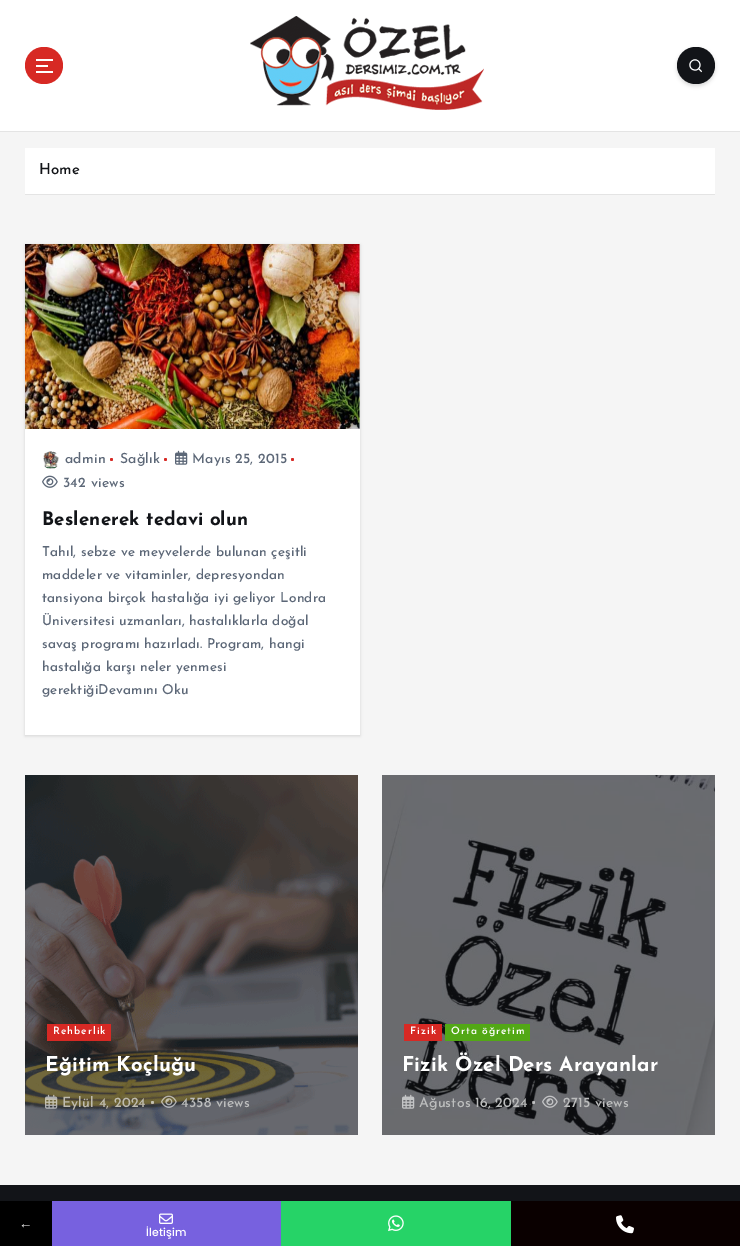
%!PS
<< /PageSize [740 1246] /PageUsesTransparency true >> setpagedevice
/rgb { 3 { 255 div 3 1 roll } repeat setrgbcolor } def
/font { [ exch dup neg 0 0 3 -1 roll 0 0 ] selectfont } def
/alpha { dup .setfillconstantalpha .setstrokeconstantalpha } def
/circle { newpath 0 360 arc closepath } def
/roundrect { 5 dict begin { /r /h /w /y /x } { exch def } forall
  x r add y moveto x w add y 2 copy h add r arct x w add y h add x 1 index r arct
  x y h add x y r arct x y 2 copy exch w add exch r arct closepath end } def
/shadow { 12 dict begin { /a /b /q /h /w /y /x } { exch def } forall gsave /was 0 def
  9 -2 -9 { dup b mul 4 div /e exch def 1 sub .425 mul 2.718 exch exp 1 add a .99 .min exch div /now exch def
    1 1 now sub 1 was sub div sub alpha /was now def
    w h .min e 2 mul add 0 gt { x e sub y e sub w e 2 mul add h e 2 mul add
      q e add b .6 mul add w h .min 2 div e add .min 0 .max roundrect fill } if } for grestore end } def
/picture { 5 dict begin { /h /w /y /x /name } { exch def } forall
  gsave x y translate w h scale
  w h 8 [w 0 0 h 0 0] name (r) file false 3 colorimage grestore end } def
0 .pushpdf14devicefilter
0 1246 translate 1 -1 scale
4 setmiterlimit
245 245 245 rgb
0 0 740 1246 rectfill
255 255 255 rgb
0 0 740 131 rectfill
228 228 228 rgb
0 131 740 1 rectfill
215 41 36 rgb
25 47 38 37 18.5 roundrect fill
[
  [36 59 17 2 255 255 255]
  [36 65 12 2 255 255 255]
  [36 71 17 2 255 255 255]
] { aload pop rgb rectfill } forall
(img/1.rgb) 250 16 234 94 picture
0 0 0 rgb
677 49 38 37 18.5 2 0.15 shadow
18 20 24 rgb
677 47 38 37 18.5 roundrect fill
(img/2.rgb) 689 59 13 14 picture
228 228 228 rgb
25 194 690 1 rectfill
255 255 255 rgb
25 148 690 46 rectfill
0 0 0 rgb
25 245 335 491 0 1.5 0.12 shadow
255 255 255 rgb
25 429 335 306 rectfill
(img/3.rgb) 25 244 335 185 picture
(img/4.rgb) 43 451 16 18 picture
215 41 36 rgb
111.5 459.5 1.5 circle fill
165.5 459.5 1.5 circle fill
(img/5.rgb) 175 450 13 15 picture
292.5 459.5 1.5 circle fill
(img/6.rgb) 42 475 16 13 picture
(img/7.rgb) 25 775 333 360 picture
47 1024 64 17 rectfill
(img/8.rgb) 45 1094 13 15 picture
0.6 alpha
255 255 255 rgb
152.5 1102.5 1.5 circle fill
1 alpha
(img/9.rgb) 161 1095 16 13 picture
(img/10.rgb) 382 775 333 360 picture
215 41 36 rgb
404 1024 38 17 rectfill
82 168 21 rgb
445 1024 85 17 rectfill
(img/11.rgb) 402 1094 13 15 picture
0.6 alpha
255 255 255 rgb
533.5 1102.5 1.5 circle fill
1 alpha
(img/12.rgb) 542 1095 16 13 picture
[
  [0 1185 740 16 18 20 24]
  [0 1201 52 45 0 0 0]
  [52 1201 229 45 119 97 223]
] { aload pop rgb rectfill } forall
(img/13.rgb) 159 1213 14 11 picture
38 211 103 rgb
281 1201 230 45 rectfill
(img/14.rgb) 388 1215 16 17 picture
10 0 0 rgb
511 1201 229 45 rectfill
(img/15.rgb) 616 1215 18 19 picture
/JosefinSans-Medium 15 font
18 20 24 rgb
39 174 moveto 0.15 0 (Home) ashow
/JosefinSans-Medium 14 font
92 103 119 rgb
65 463 moveto 0.15 0 (admin) ashow
120 463 moveto 0.15 0 (Sağlık) ashow
192 463 moveto 0.15 0 (Mayıs 25, 2015) ashow
63 487 moveto 0.15 0 (342 views) ashow
/JosefinSans-Bold 18.75 font
18 20 24 rgb
42 525 moveto 0.15 0 (Beslenerek tedavi olun) ashow
/JosefinSans-Medium 13.6 font
92 103 119 rgb
42 556 moveto 0.15 0 (Tahıl, sebze ve meyvelerde bulunan çeşitli) ashow
42 579 moveto 0.15 0 (maddeler ve vitaminler, depresyondan) ashow
42 602 moveto 0.15 0 (tansiyona birçok hastalığa iyi geliyor Londra) ashow
42 625 moveto 0.15 0 (Üniversitesi uzmanları, hastalıklarla doğal) ashow
42 648 moveto 0.15 0 (savaş programı hazırladı. Program, hangi) ashow
42 671 moveto 0.15 0 (hastalığa karşı neler yenmesi) ashow
42 694 moveto 0.15 0 (gerektiğiDevamını Oku) ashow
/JosefinSans-SemiBold 10.25 font
255 255 255 rgb
53 1034 moveto 1 0 (Rehberlik) ashow
/JosefinSans-Bold 20.4 font
45 1071 moveto 0.15 0 (Eğitim Koçluğu) ashow
/JosefinSans-Medium 14 font
191 188 175 rgb
62 1107 moveto 0.15 0 (Eylül 4, 2024) ashow
188 189 189 rgb
181 1107 moveto 0.15 0 (4358 views) ashow
/JosefinSans-SemiBold 10.25 font
255 255 255 rgb
410 1034 moveto 1 0 (Fizik) ashow
451 1034 moveto 1 0 (Orta öğretim) ashow
/JosefinSans-Bold 20.4 font
402 1071 moveto 0.15 0 (Fizik Özel Ders Arayanlar) ashow
/JosefinSans-Medium 14 font
188 189 189 rgb
419 1107 moveto 0.15 0 (Ağustos 16, 2024) ashow
563 1107 moveto 0.15 0 (2715 views) ashow
/LiberationSerif-Regular 13.6 font
255 255 255 rgb
19 1228 moveto 0.15 0 (←) ashow
/Poppins-Medium 11 font
146 1236 moveto 0.15 0 (İletişim) ashow
.poppdf14devicefilter showpage
